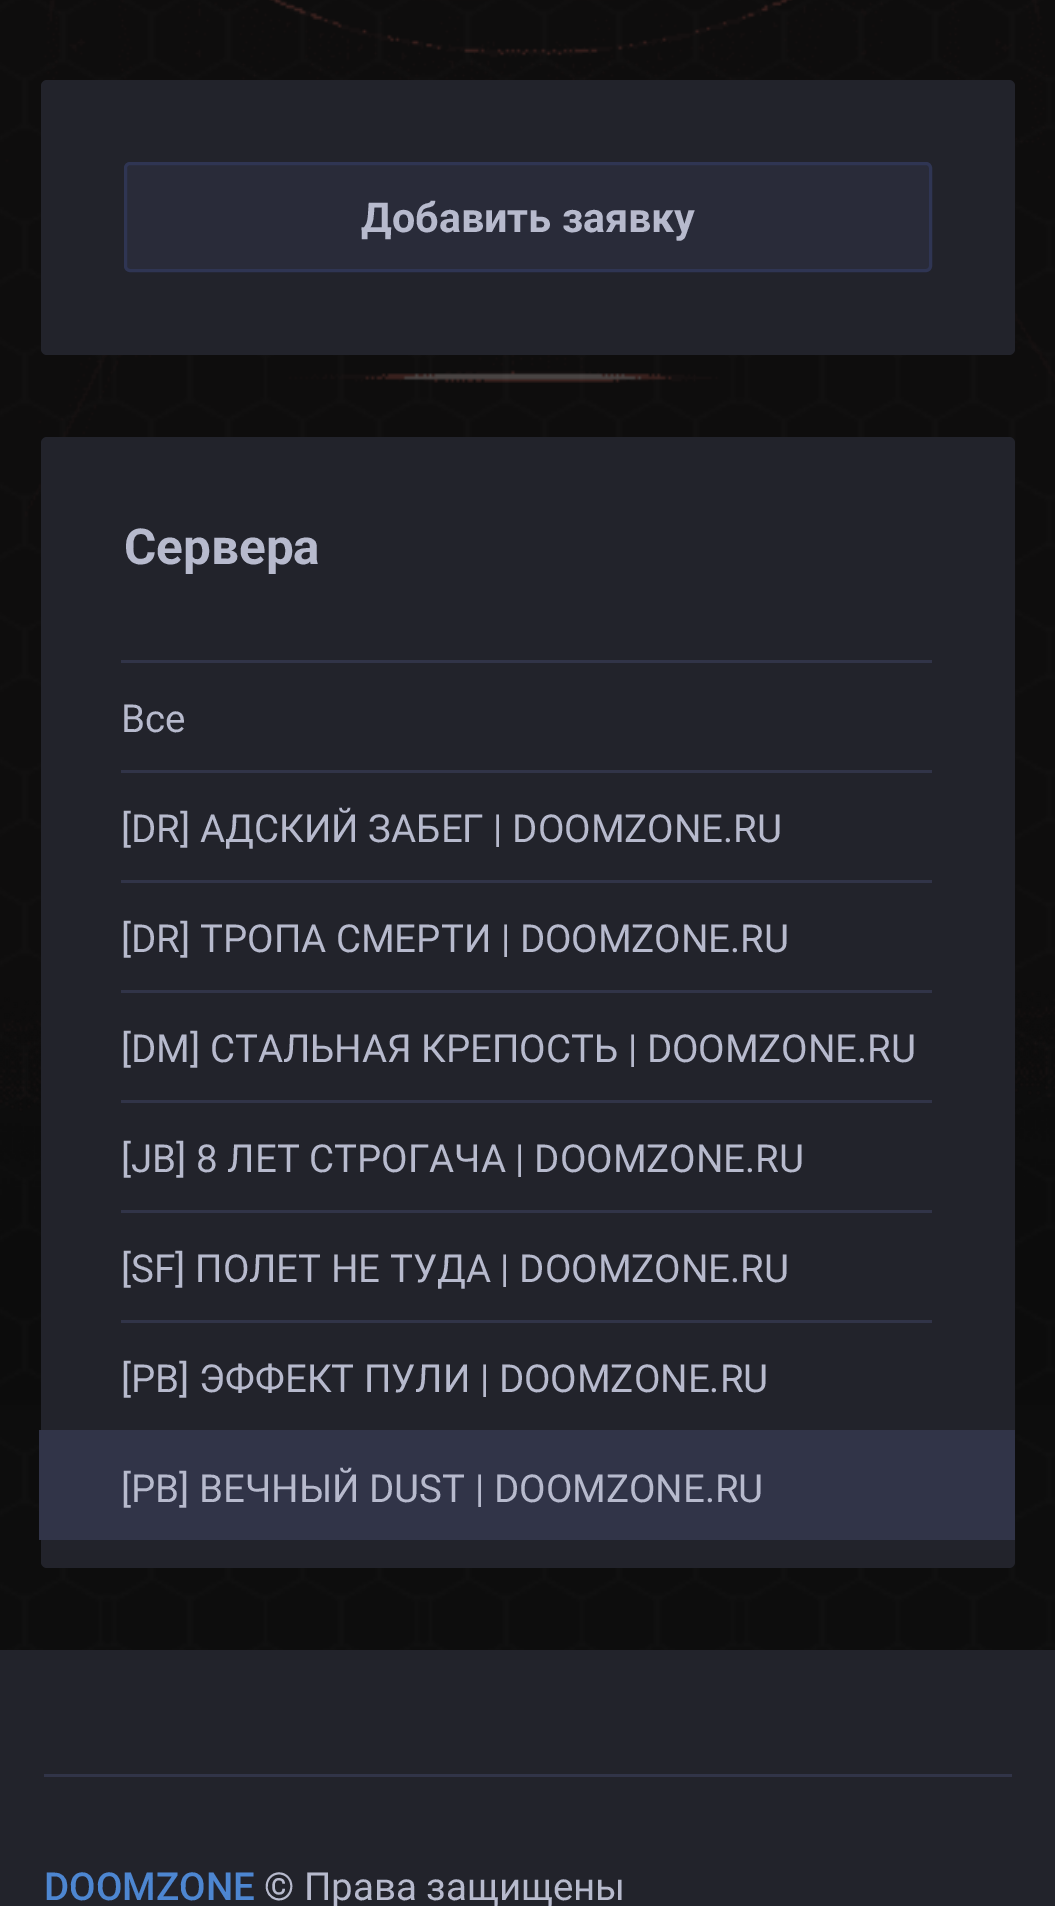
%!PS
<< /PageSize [1055 1906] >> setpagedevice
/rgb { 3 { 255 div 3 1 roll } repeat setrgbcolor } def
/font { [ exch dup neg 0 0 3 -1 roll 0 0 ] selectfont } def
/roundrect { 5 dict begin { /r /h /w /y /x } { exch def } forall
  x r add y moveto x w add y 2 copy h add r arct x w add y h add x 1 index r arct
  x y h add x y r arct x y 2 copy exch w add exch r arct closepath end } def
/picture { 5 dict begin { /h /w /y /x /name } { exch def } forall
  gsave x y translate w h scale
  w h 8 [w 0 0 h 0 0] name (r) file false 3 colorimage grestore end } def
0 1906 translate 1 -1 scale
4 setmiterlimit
255 255 255 rgb
0 0 1055 1906 rectfill
(img/1.rgb) 0 982 1055 668 picture
(img/2.rgb) 0 0 1055 982 picture
34 35 43 rgb
41 80 974 275 6 roundrect fill
41 43 57 rgb
125.5 163.5 805 107 4.5 roundrect gsave fill grestore
47 53 83 rgb
3 setlinewidth
stroke
34 35 43 rgb
41 437 974 1131 6 roundrect fill
[
  [121 660 811 3 49 52 72]
  [121 770 811 3 49 52 72]
  [121 880 811 3 49 52 72]
  [121 990 811 3 49 52 72]
  [121 1100 811 3 49 52 72]
  [121 1210 811 3 49 52 72]
  [121 1320 811 3 49 52 72]
  [39 1430 976 110 49 52 72]
  [0 1650 1055 256 34 35 43]
  [44 1774 968 3 49 52 72]
] { aload pop rgb rectfill } forall
/Roboto-Bold 41.25 font
183 186 205 rgb
361 232 moveto (Добавить заявку) show
/Roboto-Bold 49.5 font
124 564 moveto (Сервера) show
/Roboto-Regular 38.5 font
[
  [(Все) 121 732]
  [([DR] АДСКИЙ ЗАБЕГ | DOOMZONE.RU) 121 842]
  [([DR] ТРОПА СМЕРТИ | DOOMZONE.RU) 121 952]
  [([DM] СТАЛЬНАЯ КРЕПОСТЬ | DOOMZONE.RU) 121 1062]
  [([JB] 8 ЛЕТ СТРОГАЧА | DOOMZONE.RU) 121 1172]
  [([SF] ПОЛЕТ НЕ ТУДА | DOOMZONE.RU) 121 1282]
  [([PB] ЭФФЕКТ ПУЛИ | DOOMZONE.RU) 121 1392]
  [([PB] ВЕЧНЫЙ DUST | DOOMZONE.RU) 121 1502]
] { aload pop moveto show } forall
/Roboto-Medium 38.5 font
77 134 209 rgb
44 1900 moveto (DOOMZONE) show
/Roboto-Regular 38.5 font
183 186 205 rgb
264 1900 moveto (© Права защищены) show
showpage
